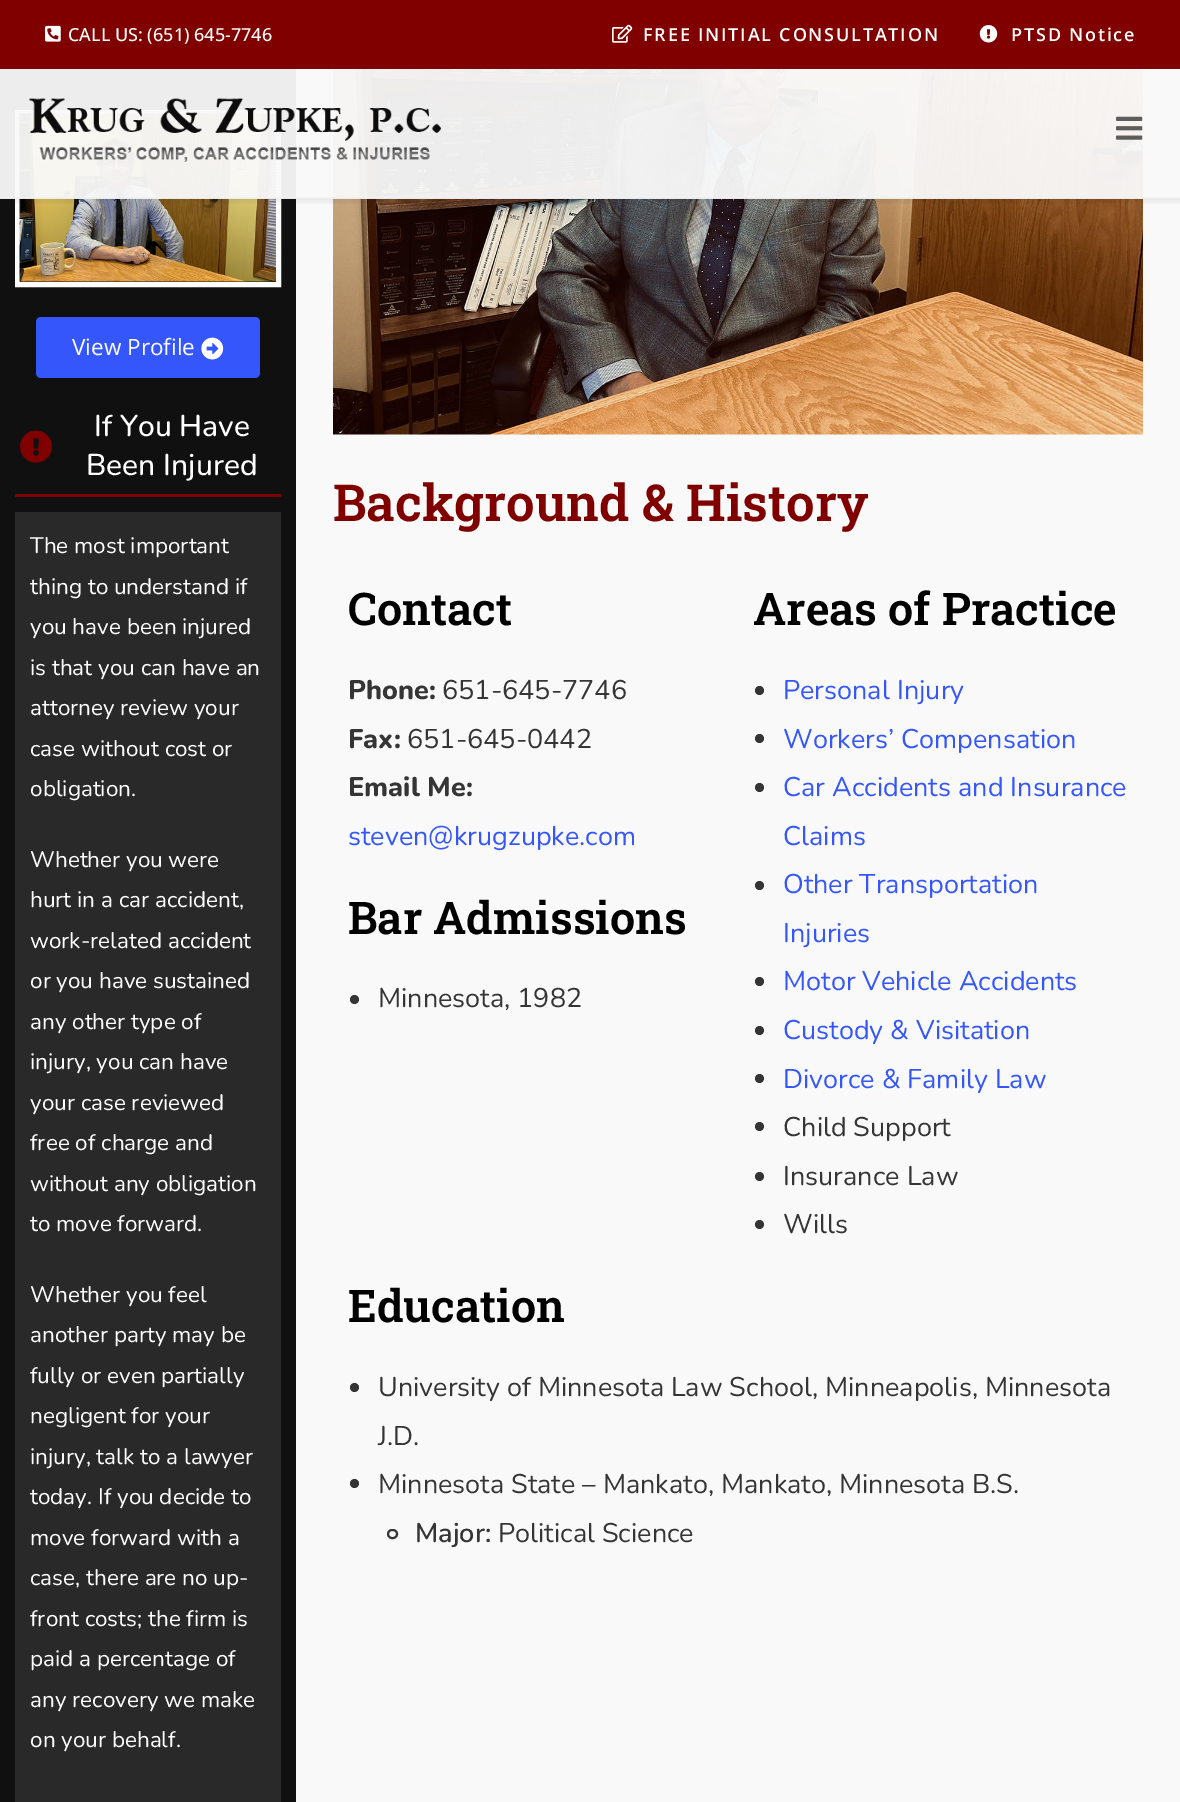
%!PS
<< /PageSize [1180 1802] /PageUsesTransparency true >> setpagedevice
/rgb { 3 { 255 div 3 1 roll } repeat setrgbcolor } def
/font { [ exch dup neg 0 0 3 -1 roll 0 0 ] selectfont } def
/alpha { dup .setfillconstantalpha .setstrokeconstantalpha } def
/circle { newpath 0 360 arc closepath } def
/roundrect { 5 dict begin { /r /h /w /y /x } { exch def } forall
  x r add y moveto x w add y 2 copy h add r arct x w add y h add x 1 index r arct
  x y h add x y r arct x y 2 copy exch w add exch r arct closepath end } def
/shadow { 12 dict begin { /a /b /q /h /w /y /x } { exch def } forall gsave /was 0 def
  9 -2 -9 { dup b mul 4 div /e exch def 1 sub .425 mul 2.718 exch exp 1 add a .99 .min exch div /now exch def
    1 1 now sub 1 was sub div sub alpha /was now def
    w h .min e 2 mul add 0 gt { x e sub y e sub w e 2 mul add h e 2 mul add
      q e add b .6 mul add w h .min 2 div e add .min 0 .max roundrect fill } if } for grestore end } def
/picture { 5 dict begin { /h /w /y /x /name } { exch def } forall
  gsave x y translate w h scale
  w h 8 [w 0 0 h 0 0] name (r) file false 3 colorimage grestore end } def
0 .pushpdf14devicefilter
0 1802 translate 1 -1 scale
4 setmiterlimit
249 249 249 rgb
0 0 1180 1802 rectfill
16 16 16 rgb
0 69 296 1733 rectfill
255 255 255 rgb
5 setlinewidth
17.5 112.5 261 172 rectstroke
(img/6.rgb) 19 113 257 169 picture
(img/9.rgb) 333 69 810 366 picture
gsave
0 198 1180 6 rectclip
0 0 0 rgb
0 72 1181 129 0 4 0.1 shadow
grestore
128 0 0 rgb
0 0 1180 69 rectfill
(img/1.rgb) 45 25 16 17 picture
(img/2.rgb) 612 24 21 19 picture
(img/3.rgb) 979 25 19 18 picture
0.95 alpha
249 249 249 rgb
0 69 1143 129 rectfill
241 241 241 rgb
0 197 1180 2 rectfill
1 alpha
(img/4.rgb) 29 98 412 64 picture
(img/5.rgb) 1116 116 27 24 picture
52 86 251 rgb
36 317 224 61 5 roundrect fill
(img/7.rgb) 201 337 23 23 picture
128 0 0 rgb
15 494 266 3 rectfill
(img/8.rgb) 20 430 32 33 picture
41 41 41 rgb
15 512 266 1290 rectfill
53 53 53 rgb
354.5 999.5 4.5 circle fill
759.5 690.5 4.5 circle fill
759.5 738.5 4.5 circle fill
759.5 787.5 4.5 circle fill
759.5 885.5 4.5 circle fill
759.5 981.5 4.5 circle fill
759.5 1030.5 4.5 circle fill
759.5 1078.5 4.5 circle fill
759.5 1126.5 4.5 circle fill
759.5 1176.5 4.5 circle fill
759.5 1224.5 4.5 circle fill
354.5 1387.5 4.5 circle fill
354.5 1483.5 4.5 circle fill
2 setlinewidth
388 1530 9 8 4 roundrect stroke
/OpenSans-Medium 18 font
255 255 255 rgb
68 41 moveto (CALL US: \(651\) 645-7746) show
/OpenSans-SemiBold 18 font
643 41 moveto 1.8 0 (FREE INITIAL CONSULTATION) ashow
1011 41 moveto 1.8 0 (PTSD Notice) ashow
/OpenSans-Regular 22.5 font
72 355 moveto (View Profile) show
/Nunito-Medium 30 font
94 436 moveto (If You Have) show
86 475 moveto (Been Injured) show
/Nunito-Regular 22.5 font
[
  [(The most important) 30 553]
  [(thing to understand if) 30 594]
  [(you have been injured) 30 634]
  [(is that you can have an) 30 675]
  [(attorney review your) 30 715]
  [(case without cost or) 30 756]
  [(obligation.) 30 796]
  [(Whether you were) 30 867]
  [(hurt in a car accident,) 30 907]
  [(work-related accident) 30 948]
  [(or you have sustained) 30 988]
  [(any other type of) 30 1029]
  [(injury, you can have) 30 1069]
  [(your case reviewed) 30 1110]
  [(free of charge and) 30 1150]
  [(without any obligation) 30 1191]
  [(to move forward.) 30 1231]
  [(Whether you feel) 30 1302]
  [(another party may be) 30 1342]
  [(fully or even partially) 30 1383]
  [(negligent for your) 30 1423]
  [(injury, talk to a lawyer) 30 1464]
  [(today. If you decide to) 30 1504]
  [(move forward with a) 30 1545]
  [(case, there are no up-) 30 1585]
  [(front costs; the firm is) 30 1626]
  [(paid a percentage of) 30 1666]
  [(any recovery we make) 30 1707]
  [(on your behalf.) 30 1747]
] { aload pop moveto show } forall
/RobotoSlab-SemiBold 51 font
128 0 0 rgb
333 521 moveto (Background & History) show
/RobotoSlab-SemiBold 45 font
0 0 0 rgb
348 625 moveto (Contact) show
/Nunito-ExtraBold 27 font
53 53 53 rgb
348 699 moveto (Phone:) show
/Nunito-Regular 27 font
442 699 moveto (651-645-7746) show
/Nunito-ExtraBold 27 font
348 748 moveto (Fax:) show
/Nunito-Regular 27 font
407 748 moveto (651-645-0442) show
/Nunito-ExtraBold 27 font
348 796 moveto (Email Me:) show
/Nunito-Regular 27 font
52 86 251 rgb
348 845 moveto (steven@krugzupke.com) show
/RobotoSlab-SemiBold 45 font
0 0 0 rgb
348 934 moveto (Bar Admissions) show
/Nunito-Regular 27 font
53 53 53 rgb
378 1007 moveto (Minnesota, 1982) show
/RobotoSlab-SemiBold 45 font
0 0 0 rgb
753 625 moveto (Areas of Practice) show
/Nunito-Regular 27 font
52 86 251 rgb
[
  [(Personal Injury) 783 699]
  [(Workers’ Compensation) 783 748]
  [(Car Accidents and Insurance) 783 796]
  [(Claims) 783 845]
  [(Other Transportation) 783 893]
  [(Injuries) 783 942]
  [(Motor Vehicle Accidents) 783 990]
  [(Custody & Visitation) 783 1039]
  [(Divorce & Family Law) 783 1088]
] { aload pop moveto show } forall
53 53 53 rgb
[
  [(Child Support) 783 1136]
  [(Insurance Law) 783 1185]
  [(Wills) 783 1233]
] { aload pop moveto show } forall
/RobotoSlab-SemiBold 45 font
0 0 0 rgb
348 1322 moveto (Education) show
/Nunito-Regular 27 font
53 53 53 rgb
[
  [(University of Minnesota Law School, Minneapolis, Minnesota) 378 1396]
  [(J.D.) 378 1445]
  [(Minnesota State – Mankato, Mankato, Minnesota B.S.) 378 1493]
] { aload pop moveto show } forall
/Nunito-SemiBold 27 font
415 1542 moveto (Major:) show
/Nunito-Regular 27 font
498 1542 moveto (Political Science) show
.poppdf14devicefilter showpage
